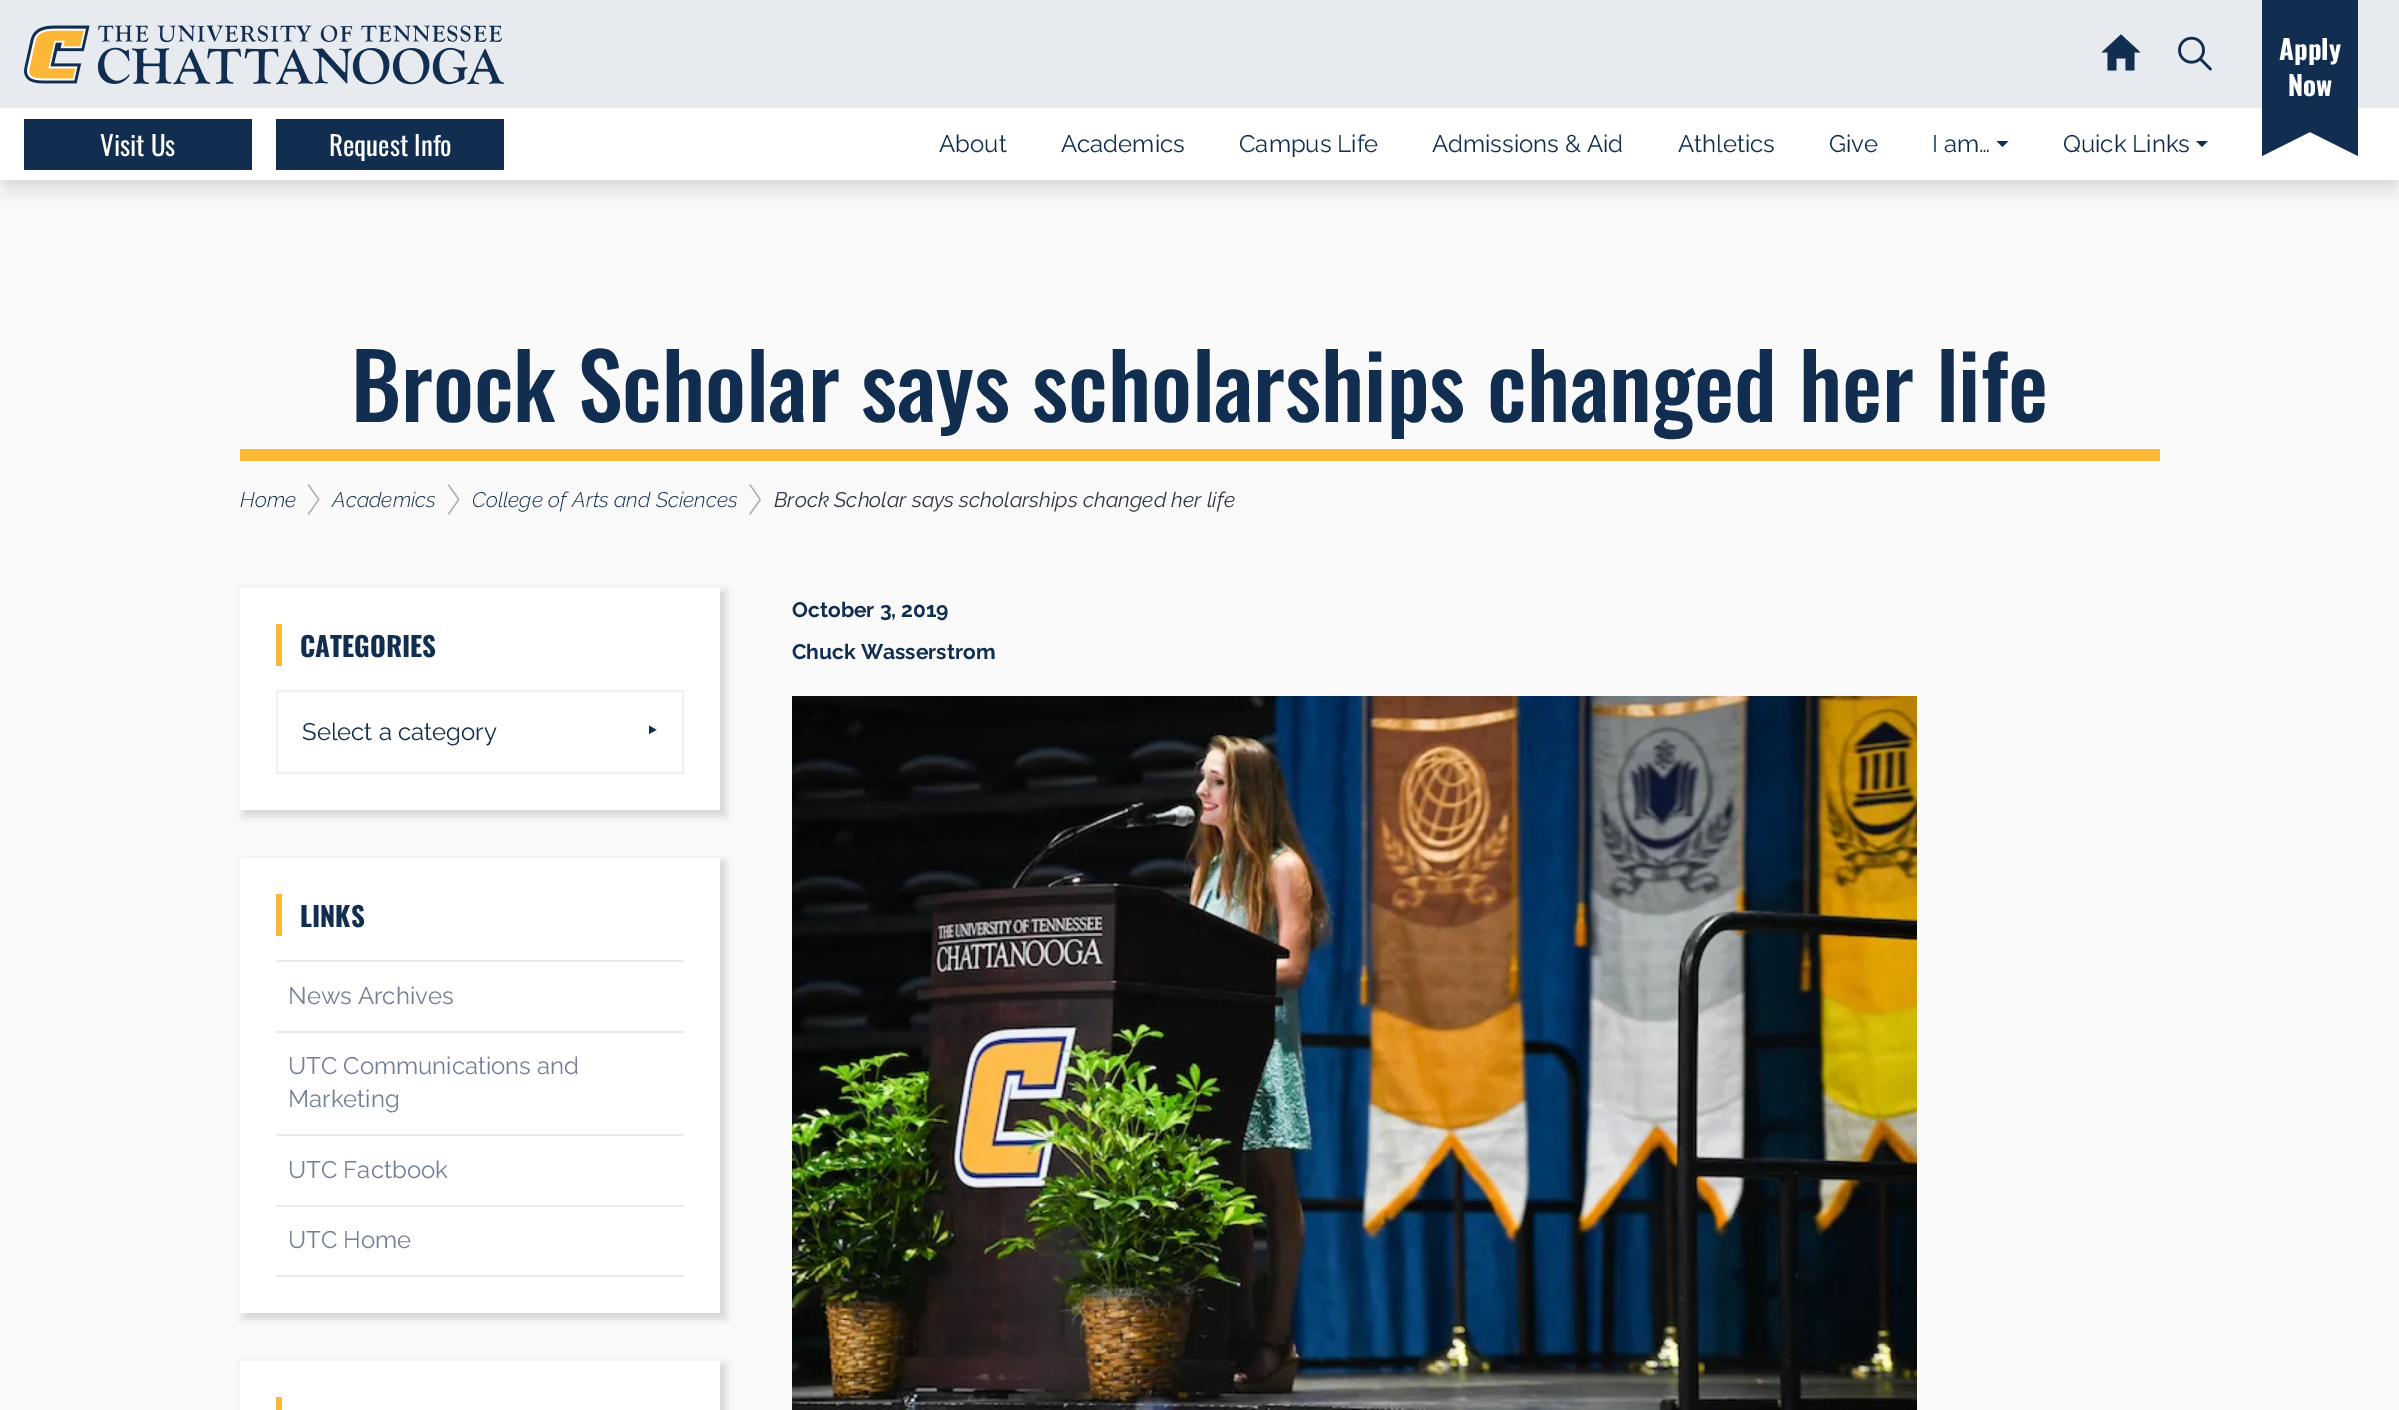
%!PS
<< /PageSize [2399 1410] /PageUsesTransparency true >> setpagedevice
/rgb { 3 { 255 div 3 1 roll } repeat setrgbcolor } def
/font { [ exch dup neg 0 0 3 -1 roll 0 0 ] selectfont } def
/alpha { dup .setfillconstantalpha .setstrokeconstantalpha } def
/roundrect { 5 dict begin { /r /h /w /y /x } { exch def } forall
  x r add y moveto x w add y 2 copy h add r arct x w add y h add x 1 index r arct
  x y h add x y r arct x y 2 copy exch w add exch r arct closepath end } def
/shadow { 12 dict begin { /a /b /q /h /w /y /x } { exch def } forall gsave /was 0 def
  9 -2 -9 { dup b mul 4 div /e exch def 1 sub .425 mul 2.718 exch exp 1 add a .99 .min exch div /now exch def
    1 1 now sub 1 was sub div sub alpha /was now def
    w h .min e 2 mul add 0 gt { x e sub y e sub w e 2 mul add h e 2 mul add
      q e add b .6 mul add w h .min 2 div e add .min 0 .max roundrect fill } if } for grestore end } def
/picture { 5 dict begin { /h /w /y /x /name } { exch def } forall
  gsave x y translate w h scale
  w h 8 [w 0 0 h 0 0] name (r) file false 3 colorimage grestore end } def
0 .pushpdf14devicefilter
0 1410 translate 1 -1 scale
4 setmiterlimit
250 250 250 rgb
0 0 2399 1410 rectfill
0 0 0 rgb
3 9 2394 174 0 4.5 0.05 shadow
5 20 2391 171 0 11 0.1 shadow
255 255 255 rgb
0 108 2399 72 rectfill
231 234 238 rgb
0 0 2399 108 rectfill
(img/1.rgb) 24 25 480 60 picture
17 46 81 rgb
2116.5 70.5 moveto 2107.5 70.5 lineto 2107.5 52.5 lineto 2101.5 52.5 lineto 2121 34.5 lineto 2140.5 52.5 lineto 2134.5 52.5 lineto 2134.5 70.5 lineto 2125.5 70.5 lineto 2125.5 58.5 lineto 2116.5 58.5 lineto closepath fill
(img/2.rgb) 2178 36 34 35 picture
2262 -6 moveto 2262 156 lineto 2310 132 lineto 2358 156 lineto 2358 -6 lineto closepath fill
24 119 228 51 rectfill
276 119 228 51 rectfill
1996.5 141 moveto 2008.5 141 lineto 2002.5 147 lineto closepath fill
2196 141 moveto 2208 141 lineto 2202 147 lineto closepath fill
253 183 54 rgb
240 449 1920 12 rectfill
168 172 179 rgb
307.5 484.5 moveto 309 484.5 lineto 319.5 499.5 lineto 318 499.5 lineto closepath fill
318 499.5 moveto 319.5 499.5 lineto 309 514.5 lineto 307.5 514.5 lineto closepath fill
447.5 484.5 moveto 449 484.5 lineto 459.5 499.5 lineto 458 499.5 lineto closepath fill
458 499.5 moveto 459.5 499.5 lineto 449 514.5 lineto 447.5 514.5 lineto closepath fill
749 484.5 moveto 750.5 484.5 lineto 761 499.5 lineto 759.5 499.5 lineto closepath fill
759.5 499.5 moveto 761 499.5 lineto 750.5 514.5 lineto 749 514.5 lineto closepath fill
0 0 0 rgb
243 591 483 225 0 4 0.15 shadow
255 255 255 rgb
240 588 480 222 rectfill
253 183 54 rgb
276 624 6 42 rectfill
237 242 247 rgb
2 setlinewidth
277 691 406 82 rectstroke
0 0 0 rgb
243 861 483 458 0 4 0.15 shadow
[
  [240 858 480 455 255 255 255]
  [276 894 6 42 253 183 54]
  [276 960 408 2 231 234 238]
  [276 1031 408 2 231 234 238]
  [276 1134 408 2 231 234 238]
  [276 1205 408 2 231 234 238]
  [276 1275 408 2 231 234 238]
] { aload pop rgb rectfill } forall
0 0 0 rgb
243 1364 483 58 0 4 0.15 shadow
255 255 255 rgb
240 1361 480 49 rectfill
253 183 54 rgb
276 1397 6 13 rectfill
(img/3.rgb) 792 696 1125 714 picture
/Oswald-Bold 27 font
255 255 255 rgb
2279 60 moveto (Apply) show
2288 96 moveto (Now) show
/Oswald-Regular 27 font
100 156 moveto (Visit Us) show
329 156 moveto (Request Info) show
/Raleway-Regular 24 font
17 46 81 rgb
[
  [(About) 939 152]
  [(Academics) 1061 152]
  [(Campus Life) 1239 152]
  [(Admissions & Aid) 1432 152]
  [(Athletics) 1678 152]
  [(Give) 1829 152]
  [(I am…) 1932 152]
  [(Quick Links) 2063 152]
] { aload pop moveto show } forall
/Oswald-Medium 90 font
351 422 moveto (Brock Scholar says scholarships changed her life) show
/Raleway-LightItalic 21 font
[
  [(Home) 240 507]
  [(Academics) 332 507]
  [(College of Arts and Sciences) 472 507]
] { aload pop moveto show } forall
/Raleway-Italic 21 font
45 55 72 rgb
774 507 moveto (Brock Scholar says scholarships changed her life) show
/Oswald-Bold 27 font
17 46 81 rgb
300 657 moveto (CATEGORIES) show
/Raleway-Regular 24 font
302 740 moveto (Select a category) show
/NotoSans-Regular 30 font
647 741 moveto (‣) show
/Oswald-Bold 27 font
300 927 moveto (LINKS) show
/Raleway-Regular 24 font
113 128 150 rgb
[
  [(News Archives) 288 1004]
  [(UTC Communications and) 288 1074]
  [(Marketing) 288 1107]
  [(UTC Factbook) 288 1178]
  [(UTC Home) 288 1248]
] { aload pop moveto show } forall
/Raleway-Bold 21 font
17 46 81 rgb
792 617 moveto (October 3, 2019) show
792 659 moveto (Chuck Wasserstrom) show
.poppdf14devicefilter showpage
